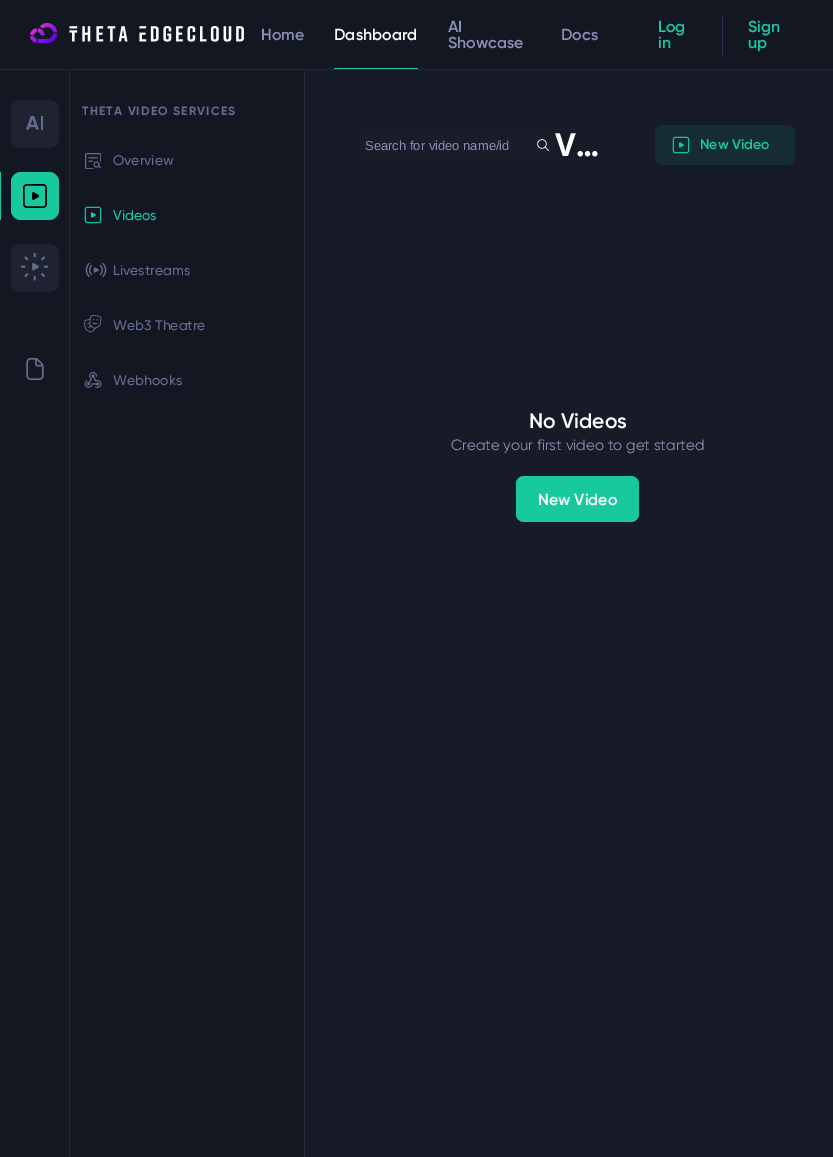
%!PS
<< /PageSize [833 1157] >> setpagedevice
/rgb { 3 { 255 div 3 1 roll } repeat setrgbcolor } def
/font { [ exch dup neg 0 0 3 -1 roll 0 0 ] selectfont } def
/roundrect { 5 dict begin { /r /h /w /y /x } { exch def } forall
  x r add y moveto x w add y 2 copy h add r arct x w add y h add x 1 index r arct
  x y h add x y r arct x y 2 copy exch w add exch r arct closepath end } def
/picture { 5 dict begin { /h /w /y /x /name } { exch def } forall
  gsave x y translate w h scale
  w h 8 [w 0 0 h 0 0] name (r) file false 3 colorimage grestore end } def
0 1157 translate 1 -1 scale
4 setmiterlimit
19 23 34 rgb
0 0 833 1157 rectfill
36 40 59 rgb
0 69 833 1 rectfill
(img/1.rgb) 30 23 214 20 picture
[
  [334 68 84 1 24 201 157]
  [722 15 1 40 44 51 79]
  [69 70 1 1087 36 40 59]
] { aload pop rgb rectfill } forall
31 35 49 rgb
11 100 48 48 10 roundrect fill
(img/2.rgb) 26 116 17 14 picture
24 201 157 rgb
0 172 1 48 rectfill
11 172 48 48 10 roundrect fill
(img/3.rgb) 23 184 24 24 picture
31 35 49 rgb
11 244 48 48 10 roundrect fill
(img/4.rgb) 21 253 27 28 picture
(img/5.rgb) 26 357 18 24 picture
36 40 59 rgb
304 70 1 1087 rectfill
(img/6.rgb) 85 153 16 16 picture
(img/7.rgb) 84 206 18 18 picture
(img/8.rgb) 85 262 22 16 picture
(img/9.rgb) 84 315 18 18 picture
(img/10.rgb) 84 372 18 16 picture
22 27 39 rgb
305 70 528 1087 rectfill
25 29 41 rgb
365 133 moveto 530 133 lineto 530 158 lineto 365 158 lineto 362 158 360 156 360 153 curveto 360 138 lineto 360 135 362 133 365 133 curveto closepath fill
530 133 moveto 550 133 lineto 553 133 555 135 555 138 curveto 555 153 lineto 555 156 553 158 550 158 curveto 530 158 lineto closepath fill
(img/11.rgb) 537 139 13 13 picture
22 44 51 rgb
655 125 140 40 8 roundrect fill
(img/12.rgb) 672 136 18 18 picture
24 201 157 rgb
516 476 123 46 8 roundrect fill
/Gilroy-SemiBold 16 font
138 143 181 rgb
261 40 moveto (Home) show
255 255 255 rgb
334 40 moveto (Dashboard) show
138 143 181 rgb
[
  [(AI) 448 32]
  [(Showcase) 448 48]
  [(Docs) 561 40]
] { aload pop moveto show } forall
24 201 157 rgb
[
  [(Log) 658 32]
  [(in) 658 48]
  [(Sign) 748 32]
  [(up) 748 48]
] { aload pop moveto show } forall
/Gilroy-Bold 12 font
99 107 145 rgb
82 115 moveto 1.2 0 (THETA VIDEO SERVICES) ashow
/Gilroy-Medium 14 font
113 165 moveto (Overview) show
24 201 157 rgb
113 220 moveto (Videos) show
99 107 145 rgb
[
  [(Livestreams) 113 275]
  [(Web3 Theatre) 113 330]
  [(Webhooks) 113 385]
] { aload pop moveto show } forall
/LiberationSans-Regular 13 font
138 143 181 rgb
365 150 moveto (Search for video name/id) show
/NotoSans-Bold 32 font
255 255 255 rgb
555 156 moveto (V) show
/Gilroy-Bold 32 font
576 156 moveto (…) show
/Gilroy-SemiBold 14 font
24 201 157 rgb
700 149 moveto (New Video) show
/Gilroy-SemiBold 21 font
255 255 255 rgb
529 428 moveto (No Videos) show
/Gilroy-Regular 15 font
138 143 181 rgb
451 450 moveto (Create your first video to get started) show
/Gilroy-SemiBold 16 font
255 255 255 rgb
538 505 moveto (New Video) show
showpage
